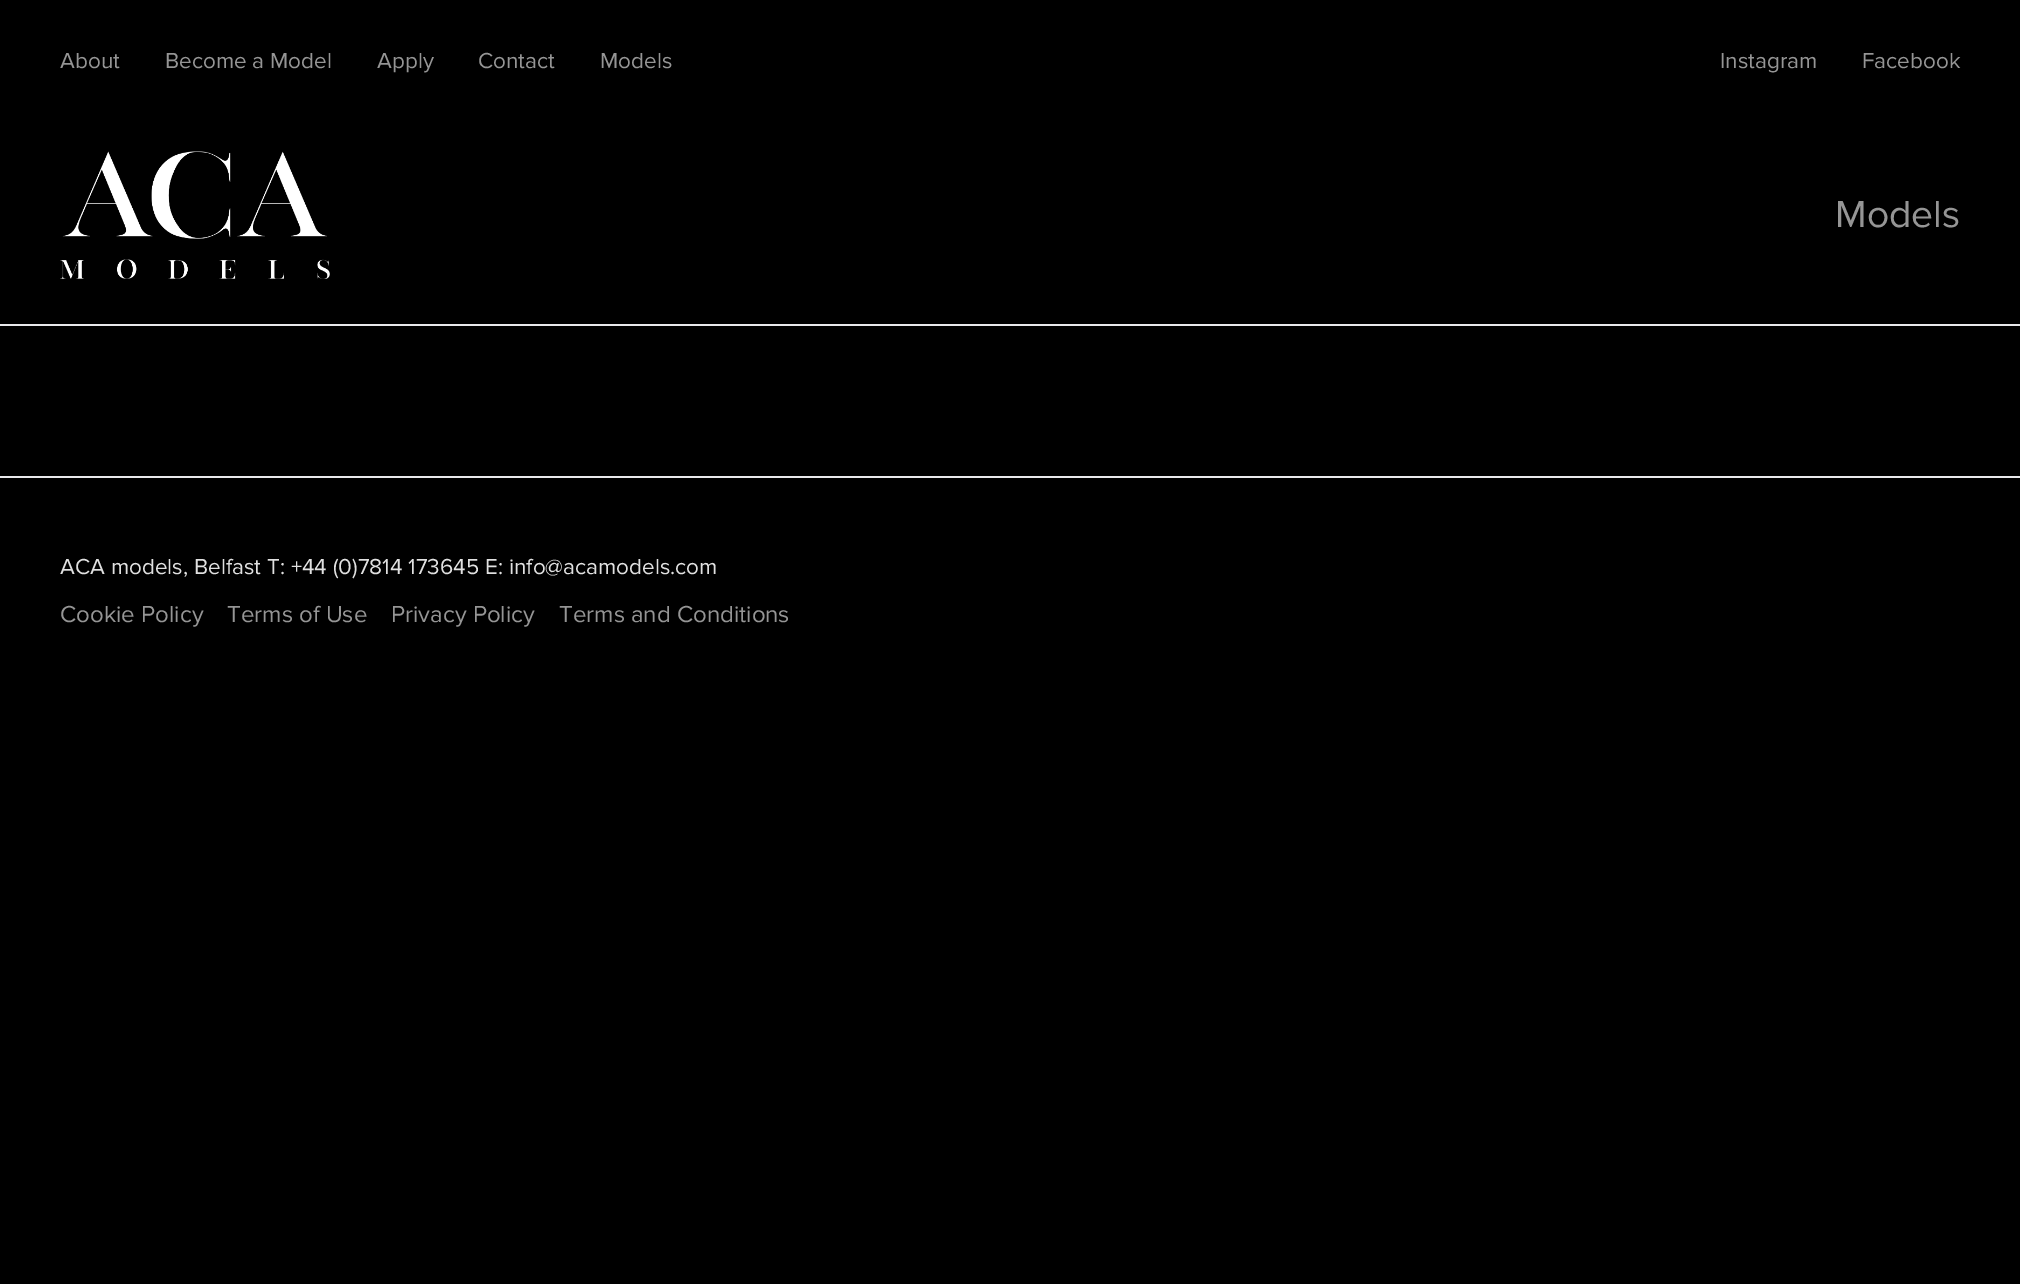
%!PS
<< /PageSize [2020 1284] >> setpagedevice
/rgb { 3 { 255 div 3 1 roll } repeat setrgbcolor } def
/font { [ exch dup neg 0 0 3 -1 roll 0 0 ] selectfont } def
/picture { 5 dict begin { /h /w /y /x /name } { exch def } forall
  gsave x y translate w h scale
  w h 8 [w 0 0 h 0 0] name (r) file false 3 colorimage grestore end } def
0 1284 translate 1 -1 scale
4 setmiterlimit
0 0 0 rgb
0 0 2020 1284 rectfill
233 233 235 rgb
0 324 2020 2 rectfill
(img/1.rgb) 60 151 270 128 picture
0 476 2020 2 rectfill
/ProximaNova-Regular 22.5 font
149 149 149 rgb
[
  [(About) 60 68]
  [(Become a Model) 165 68]
  [(Apply) 377 68]
  [(Contact) 478 68]
  [(Models) 600 68]
  [(Instagram) 1720 68]
  [(Facebook) 1862 68]
] { aload pop moveto show } forall
/ProximaNova-Regular 39 font
1835 227 moveto (Models) show
/ProximaNova-Regular 22.5 font
224 224 224 rgb
60 574 moveto (ACA models, Belfast T: +44 \(0\)7814 173645 E: info@acamodels.com) show
/ProximaNova-Regular 24 font
149 149 149 rgb
[
  [(Cookie Policy) 60 622]
  [(Terms of Use) 227 622]
  [(Privacy Policy) 391 622]
  [(Terms and Conditions) 559 622]
] { aload pop moveto show } forall
showpage
